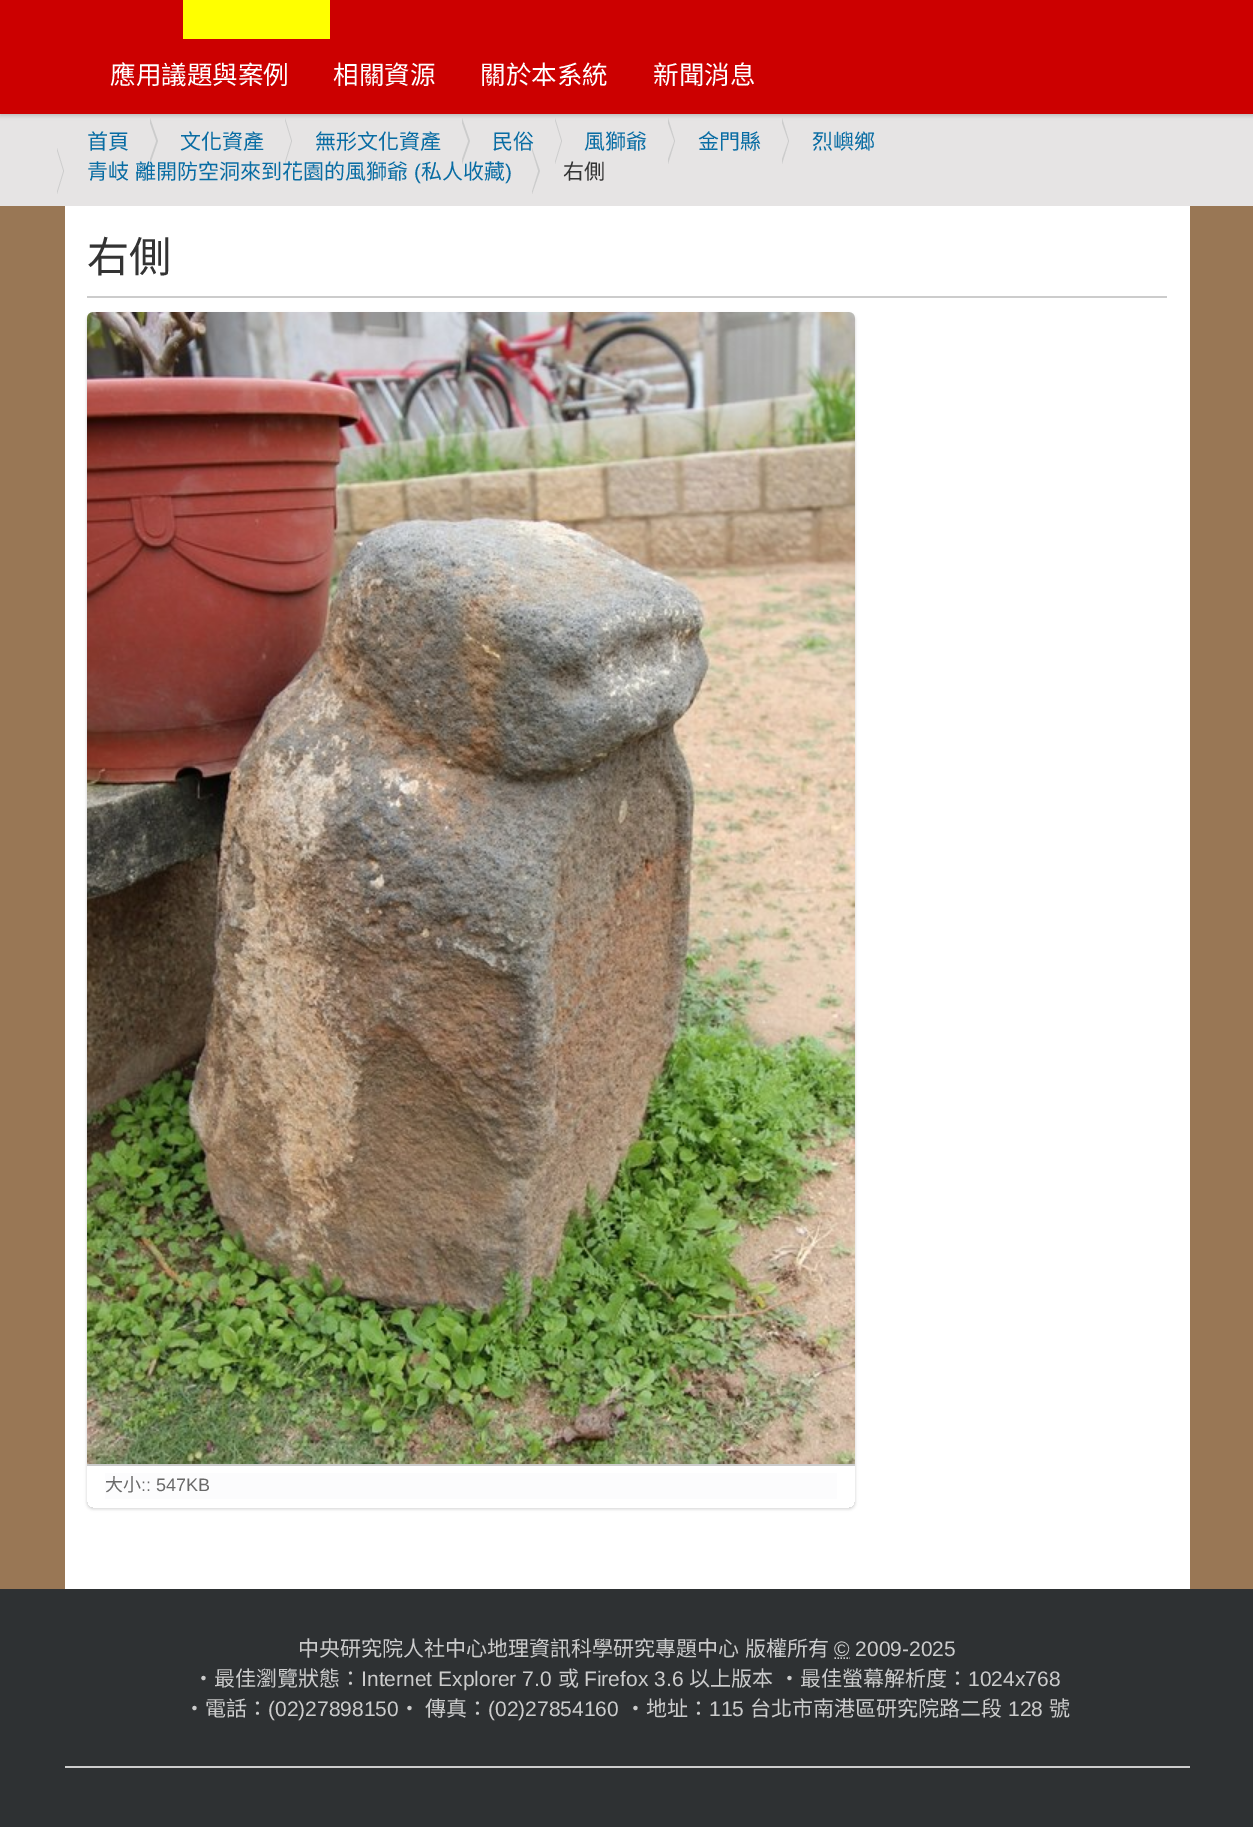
%!PS
<< /PageSize [1253 1827] /PageUsesTransparency true >> setpagedevice
/rgb { 3 { 255 div 3 1 roll } repeat setrgbcolor } def
/font { [ exch dup neg 0 0 3 -1 roll 0 0 ] selectfont } def
/alpha { dup .setfillconstantalpha .setstrokeconstantalpha } def
/roundrect { 5 dict begin { /r /h /w /y /x } { exch def } forall
  x r add y moveto x w add y 2 copy h add r arct x w add y h add x 1 index r arct
  x y h add x y r arct x y 2 copy exch w add exch r arct closepath end } def
/shadow { 12 dict begin { /a /b /q /h /w /y /x } { exch def } forall gsave /was 0 def
  9 -2 -9 { dup b mul 4 div /e exch def 1 sub .425 mul 2.718 exch exp 1 add a .99 .min exch div /now exch def
    1 1 now sub 1 was sub div sub alpha /was now def
    w h .min e 2 mul add 0 gt { x e sub y e sub w e 2 mul add h e 2 mul add
      q e add b .6 mul add w h .min 2 div e add .min 0 .max roundrect fill } if } for grestore end } def
/picture { 5 dict begin { /h /w /y /x /name } { exch def } forall
  gsave x y translate w h scale
  w h 8 [w 0 0 h 0 0] name (r) file false 3 colorimage grestore end } def
0 .pushpdf14devicefilter
0 1827 translate 1 -1 scale
4 setmiterlimit
153 119 85 rgb
0 0 1253 1827 rectfill
230 228 228 rgb
0 114 1253 92 rectfill
0 0 0 rgb
0 -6 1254 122 0 2 0.17 shadow
204 0 0 rgb
0 0 1253 114 rectfill
255 255 0 rgb
183 0 147 39 rectfill
204 204 204 rgb
150 164 moveto 150 118 lineto 158 141 lineto closepath fill
230 228 228 rgb
148 164 moveto 148 118 lineto 156 141 lineto closepath fill
204 204 204 rgb
285 164 moveto 285 118 lineto 292 141 lineto closepath fill
230 228 228 rgb
284 164 moveto 284 118 lineto 291 141 lineto closepath fill
204 204 204 rgb
462 164 moveto 462 118 lineto 470 141 lineto closepath fill
230 228 228 rgb
460 164 moveto 460 118 lineto 468 141 lineto closepath fill
204 204 204 rgb
555 164 moveto 555 118 lineto 562 141 lineto closepath fill
230 228 228 rgb
554 164 moveto 554 118 lineto 561 141 lineto closepath fill
204 204 204 rgb
668 164 moveto 668 118 lineto 675 141 lineto closepath fill
230 228 228 rgb
666 164 moveto 666 118 lineto 674 141 lineto closepath fill
204 204 204 rgb
782 164 moveto 782 118 lineto 789 141 lineto closepath fill
230 228 228 rgb
780 164 moveto 780 118 lineto 788 141 lineto closepath fill
204 204 204 rgb
57 194 moveto 57 148 lineto 64 171 lineto closepath fill
230 228 228 rgb
56 194 moveto 56 148 lineto 63 171 lineto closepath fill
255 255 255 rgb
65 206 1125 1383 rectfill
204 204 204 rgb
87 296 1080 2 rectfill
gsave
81 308 moveto 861 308 lineto 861 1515 lineto 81 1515 lineto closepath 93 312 moveto 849 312 lineto 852.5 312 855 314.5 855 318 curveto 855 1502 lineto 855 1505.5 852.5 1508 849 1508 curveto 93 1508 lineto 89.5 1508 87 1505.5 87 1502 curveto 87 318 lineto 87 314.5 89.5 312 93 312 curveto closepath eoclip newpath
0 0 0 rgb
87 314 768 1195 6 1.5 0.17 shadow
grestore
87 1464 768 2 rectfill
(img/1.rgb) 87 312 768 1152 picture
[
  [105 1473 732 26 252 252 253]
  [0 1589 1253 238 46 49 51]
  [65 1766 1125 2 204 204 204]
] { aload pop rgb rectfill } forall
1.5 setlinewidth
[1.5 1.5] 0 setdash
834.5 1658 moveto 850 1658 lineto stroke
/NotoSansCJKTC-Regular 25.5 font
255 255 255 rgb
[
  [(應用議題與案例) 110 84]
  [(相關資源) 333 84]
  [(關於本系統) 480 84]
  [(新聞消息) 653 84]
] { aload pop moveto show } forall
/NotoSansCJKTC-Regular 21 font
8 108 163 rgb
[
  [(首頁) 87 149]
  [(文化資產) 180 149]
  [(無形文化資產) 315 149]
  [(民俗) 492 149]
  [(風獅爺) 584 149]
  [(金門縣) 698 149]
  [(烈嶼鄉) 812 149]
] { aload pop moveto show } forall
87 179 moveto 1 0 32 (青岐 離開防空洞來到花園的風獅爺) widthshow
/LiberationSans-Regular 21 font
414 179 moveto (\() show
/NotoSansCJKTC-Regular 21 font
421 179 moveto (私人收藏) show
/LiberationSans-Regular 21 font
505 179 moveto (\)) show
204 204 204 rgb
532 194 moveto 532 148 lineto 540 171 lineto closepath fill
230 228 228 rgb
531 194 moveto 531 148 lineto 538 171 lineto closepath fill
/NotoSansCJKTC-Regular 21 font
51 51 51 rgb
563 179 moveto (右側) show
/NotoSansCJKTC-Regular 42 font
87 272 moveto (右側) show
/NotoSansCJKTC-Regular 18 font
105 105 105 rgb
105 1491 moveto (大小) show
/LiberationSans-Regular 18 font
141 1491 moveto (:: 547KB) show
/NotoSansCJKTC-Regular 21 font
204 204 204 rgb
298 1656 moveto 1 0 32 (中央研究院人社中心地理資訊科學研究專題中心 版權所有) widthshow
/LiberationSans-Regular 21 font
834 1656 moveto (© 2009-2025) show
/NotoSansCJKTC-Regular 21 font
193 1686 moveto (‧最佳瀏覽狀態：) show
/LiberationSans-Regular 21 font
361 1686 moveto (Internet Explorer 7.0) show
/NotoSansCJKTC-Regular 21 font
558 1686 moveto (或) show
/LiberationSans-Regular 21 font
584 1686 moveto (Firefox 3.6) show
/NotoSansCJKTC-Regular 21 font
689 1686 moveto (以上版本) show
779 1686 moveto (‧最佳螢幕解析度：) show
/LiberationSans-Regular 21 font
968 1686 moveto (1024x768) show
/NotoSansCJKTC-Regular 21 font
184 1716 moveto (‧電話：) show
/LiberationSans-Regular 21 font
268 1716 moveto (\(02\)27898150) show
/NotoSansCJKTC-Regular 21 font
399 1716 moveto (‧ 傳真：) show
/LiberationSans-Regular 21 font
488 1716 moveto (\(02\)27854160) show
/NotoSansCJKTC-Regular 21 font
625 1716 moveto (‧地址：) show
/LiberationSans-Regular 21 font
709 1716 moveto (115) show
/NotoSansCJKTC-Regular 21 font
750 1716 moveto (台北市南港區研究院路二段) show
/LiberationSans-Regular 21 font
1008 1716 moveto (128) show
/NotoSansCJKTC-Regular 21 font
1049 1716 moveto (號) show
.poppdf14devicefilter showpage
